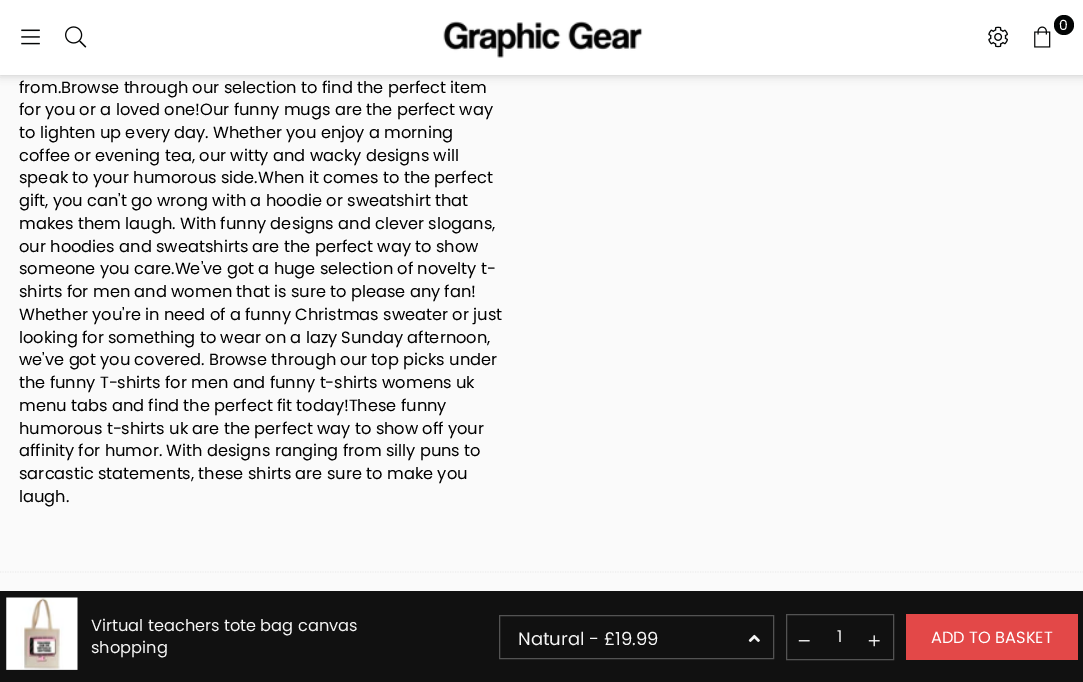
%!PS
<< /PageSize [1083 682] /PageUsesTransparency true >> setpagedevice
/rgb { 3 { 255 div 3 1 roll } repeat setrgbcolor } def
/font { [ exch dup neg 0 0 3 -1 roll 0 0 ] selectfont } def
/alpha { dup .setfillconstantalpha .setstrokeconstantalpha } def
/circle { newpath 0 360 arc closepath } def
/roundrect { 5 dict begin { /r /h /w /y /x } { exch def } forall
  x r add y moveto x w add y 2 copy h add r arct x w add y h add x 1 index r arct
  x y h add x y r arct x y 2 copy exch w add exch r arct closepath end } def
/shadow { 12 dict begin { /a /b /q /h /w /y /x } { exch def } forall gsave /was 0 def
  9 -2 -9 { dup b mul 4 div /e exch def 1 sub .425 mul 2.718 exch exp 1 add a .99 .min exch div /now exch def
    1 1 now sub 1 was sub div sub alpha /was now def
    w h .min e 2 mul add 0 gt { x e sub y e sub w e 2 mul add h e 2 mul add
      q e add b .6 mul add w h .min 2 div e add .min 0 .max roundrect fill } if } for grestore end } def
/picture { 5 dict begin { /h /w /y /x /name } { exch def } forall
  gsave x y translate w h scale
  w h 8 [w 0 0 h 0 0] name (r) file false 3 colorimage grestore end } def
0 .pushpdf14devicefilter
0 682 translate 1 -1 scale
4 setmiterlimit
250 250 250 rgb
0 0 1083 682 rectfill
0 0 0 rgb
0 0 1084 75 0 4.5 0.2 shadow
255 255 255 rgb
0 0 1083 75 rectfill
(img/1.rgb) 21 29 19 16 picture
(img/2.rgb) 65 26 22 22 picture
(img/3.rgb) 443 21 200 37 picture
3 5 5 rgb
1064 25 10 circle fill
(img/4.rgb) 1034 26 17 22 picture
(img/5.rgb) 988 26 20 22 picture
238 238 238 rgb
1.2 setlinewidth
[1.25 1.25] 0 setdash
0 572 moveto 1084 572 lineto stroke
17 17 17 rgb
0 591 1083 91 rectfill
(img/6.rgb) 6 597 72 73 picture
83 83 83 rgb
1 setlinewidth
[] 0 setdash
499.5 615.5 274 43 rectstroke
(img/7.rgb) 748 634 12 8 picture
786.5 614.5 107 45 rectstroke
(img/8.rgb) 798 640 12 2 picture
(img/9.rgb) 868 635 12 12 picture
227 72 72 rgb
906 614 172 46 rectfill
/Poppins-Regular 14 font
255 255 255 rgb
1059 30 moveto (0) show
/Poppins-Regular 16.25 font
0 0 0 rgb
[
  [(from.Browse through our selection to find the perfect item) 19 93]
  [(for you or a loved one!Our funny mugs are the perfect way) 19 115]
  [(to lighten up every day. Whether you enjoy a morning) 19 138]
  [(coffee or evening tea, our witty and wacky designs will) 19 161]
  [(speak to your humorous side.When it comes to the perfect) 19 183]
  [(gift, you can't go wrong with a hoodie or sweatshirt that) 19 206]
  [(makes them laugh. With funny designs and clever slogans,) 19 229]
  [(our hoodies and sweatshirts are the perfect way to show) 19 252]
  [(someone you care.We've got a huge selection of novelty t-) 19 274]
  [(shirts for men and women that is sure to please any fan!) 19 297]
  [(Whether you're in need of a funny Christmas sweater or just) 19 320]
  [(looking for something to wear on a lazy Sunday afternoon,) 19 343]
  [(we've got you covered. Browse through our top picks under) 19 365]
  [(the funny T-shirts for men and funny t-shirts womens uk) 19 388]
  [(menu tabs and find the perfect fit today!These funny) 19 411]
  [(humorous t-shirts uk are the perfect way to show off your) 19 434]
  [(affinity for humor. With designs ranging from silly puns to) 19 456]
  [(sarcastic statements, these shirts are sure to make you) 19 479]
  [(laugh.) 19 502]
] { aload pop moveto show } forall
245 245 245 rgb
91 631 moveto (Virtual teachers tote bag canvas) show
91 653 moveto (shopping) show
/Poppins-Regular 18 font
518 645 moveto (Natural - £19.99) show
/Poppins-Regular 16.25 font
837 642 moveto (1) show
255 255 255 rgb
931 643 moveto (ADD TO BASKET) show
.poppdf14devicefilter showpage
